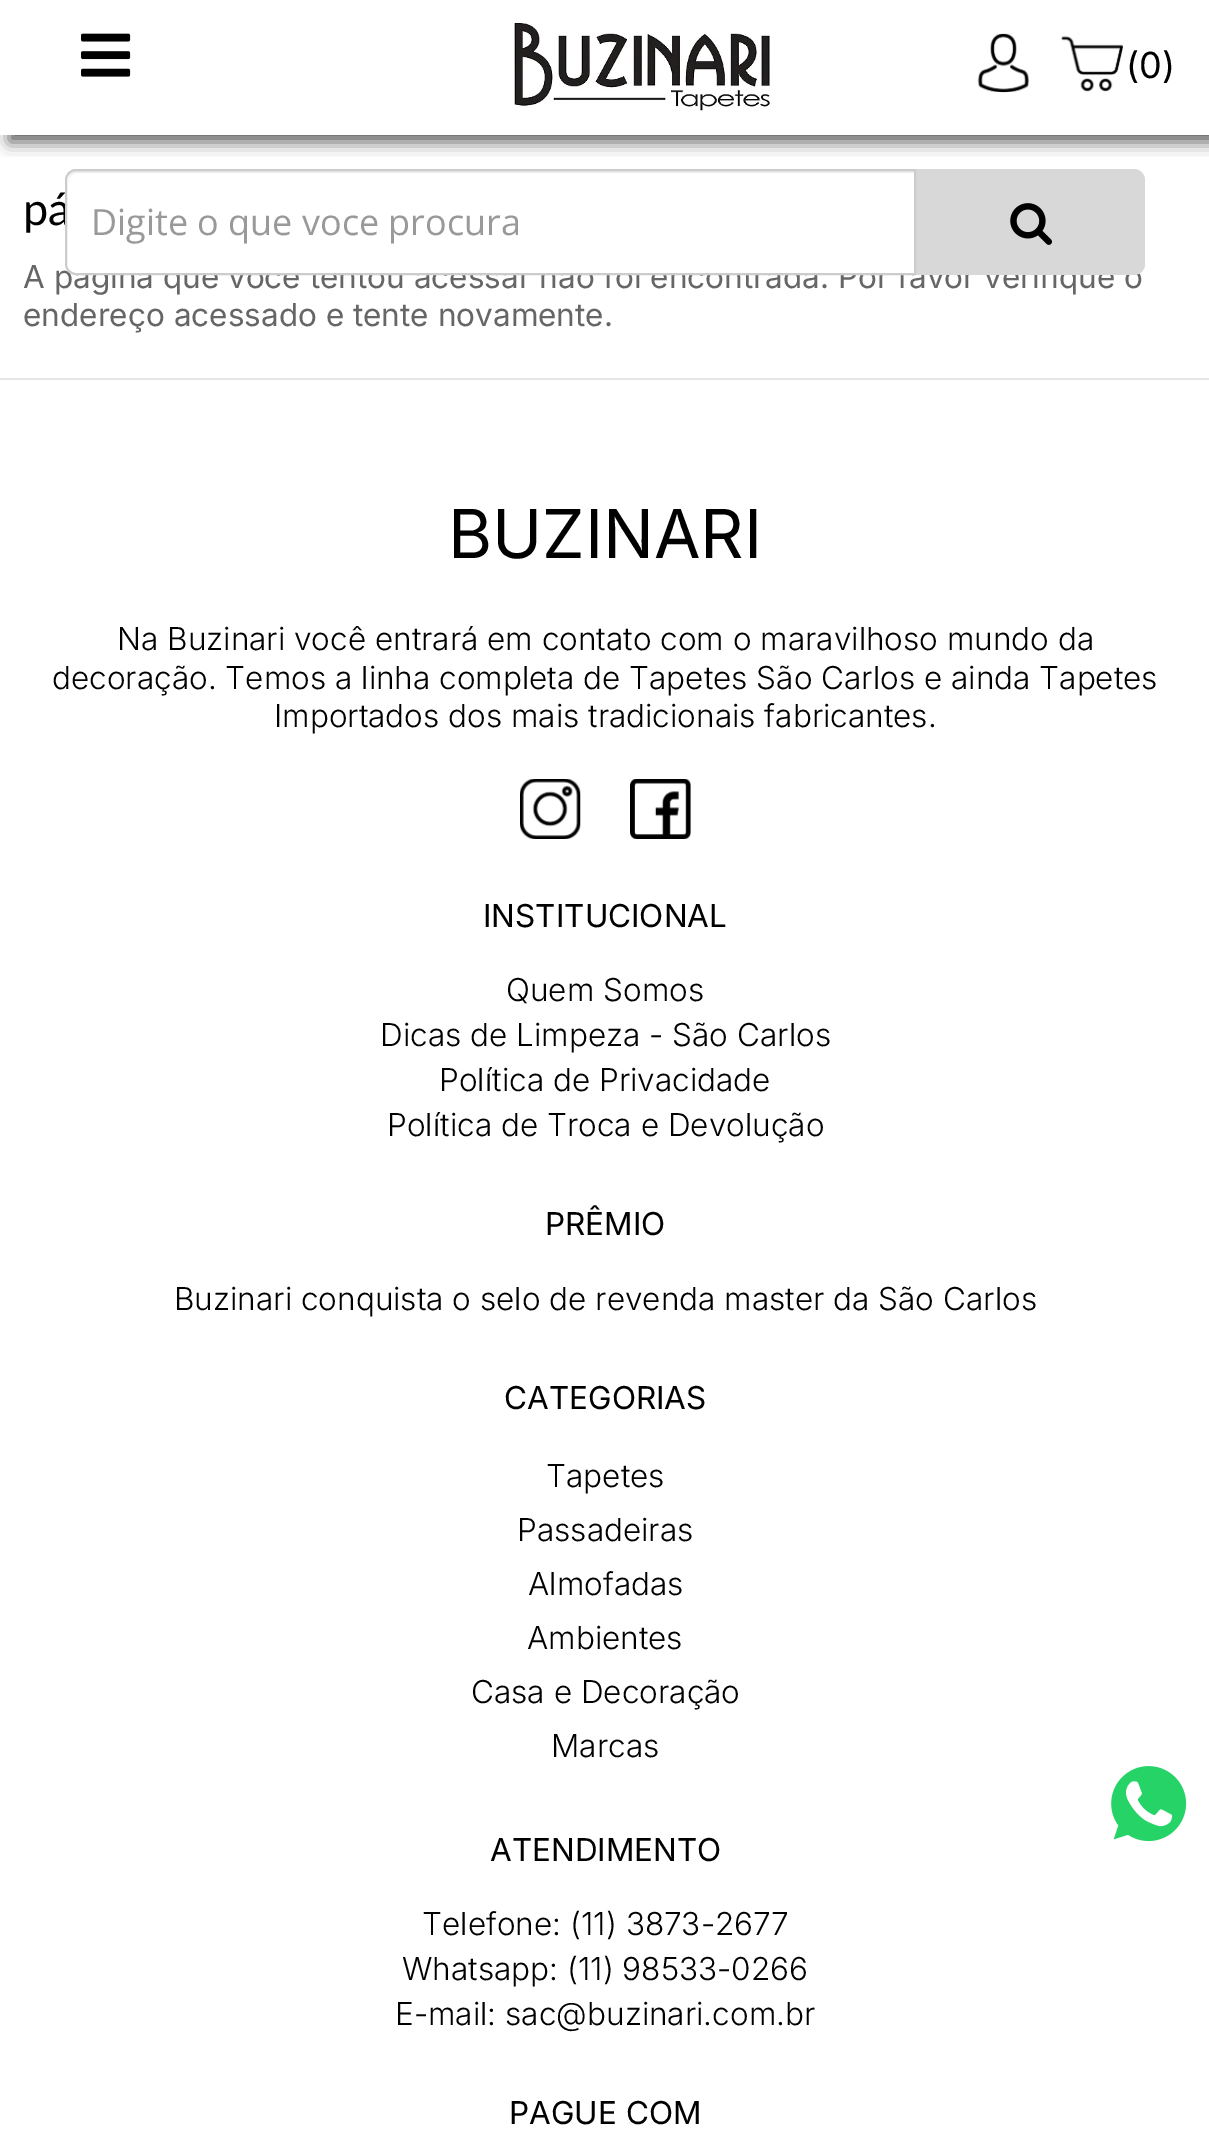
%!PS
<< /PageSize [1209 2148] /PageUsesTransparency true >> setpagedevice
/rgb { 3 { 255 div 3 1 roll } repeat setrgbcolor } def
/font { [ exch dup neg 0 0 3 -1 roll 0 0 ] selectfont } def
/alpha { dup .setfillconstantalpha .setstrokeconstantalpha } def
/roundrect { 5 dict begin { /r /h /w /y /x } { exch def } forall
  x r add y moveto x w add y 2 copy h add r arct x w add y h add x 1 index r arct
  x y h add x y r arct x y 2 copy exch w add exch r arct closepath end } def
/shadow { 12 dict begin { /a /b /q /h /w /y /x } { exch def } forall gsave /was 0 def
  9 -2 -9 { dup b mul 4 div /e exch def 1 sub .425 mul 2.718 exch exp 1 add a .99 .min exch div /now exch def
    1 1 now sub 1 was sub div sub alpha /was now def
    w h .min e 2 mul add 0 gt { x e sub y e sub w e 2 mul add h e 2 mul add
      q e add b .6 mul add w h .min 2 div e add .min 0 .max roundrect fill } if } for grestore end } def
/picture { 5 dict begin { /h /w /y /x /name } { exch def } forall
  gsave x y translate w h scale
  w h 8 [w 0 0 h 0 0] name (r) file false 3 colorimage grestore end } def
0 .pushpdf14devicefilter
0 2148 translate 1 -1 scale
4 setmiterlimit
255 255 255 rgb
0 0 1209 2148 rectfill
gsave
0 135 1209 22 rectclip
0 0 0 rgb
9 7 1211 135 0 8 0.64 shadow
grestore
(img/1.rgb) 81 33 50 44 picture
(img/2.rgb) 514 23 256 88 picture
(img/3.rgb) 977 33 53 60 picture
(img/4.rgb) 1061 36 62 56 picture
230 230 230 rgb
0 378 1209 2 rectfill
(img/6.rgb) 520 779 61 60 picture
(img/7.rgb) 630 779 61 60 picture
(img/8.rgb) 1111 1766 76 76 picture
/Inter-Regular 36 font
0 0 0 rgb
1126 78 moveto (\(0\)) show
/Lato-Regular 45 font
23 225 moveto (pá) show
/Inter-Regular 31.5 font
102 102 102 rgb
23 288 moveto (A página que você tentou acessar não foi encontrada. Por favor verifique o) show
216 216 216 rgb
916 169 moveto 1134 169 lineto 1140 169 1145 174 1145 180 curveto 1145 264 lineto 1145 270 1140 275 1134 275 curveto 916 275 lineto closepath fill
(img/5.rgb) 1010 203 42 42 picture
255 255 255 rgb
76 169 moveto 916 169 lineto 916 275 lineto 76 275 lineto 70 275 65 270 65 264 curveto 65 180 lineto 65 174 70 169 76 169 curveto closepath fill
236 236 236 rgb
76 173 moveto 914 173 lineto 914 171 lineto 77 171 lineto 71 171 68 176 68 182 curveto 68 177 72 173 76 173 curveto closepath fill
204 204 204 rgb
2 setlinewidth
76 170 moveto 915 170 lineto 915 274 lineto 76 274 lineto 70.5 274 66 269.5 66 264 curveto 66 180 lineto 66 174.5 70.5 170 76 170 curveto closepath stroke
/OpenSans-Regular 36 font
153 153 153 rgb
91 235 moveto (Digite o que voce procura) show
/Inter-Regular 31.5 font
102 102 102 rgb
23 326 moveto (endereço acessado e tente novamente.) show
/Inter-Regular 67.5 font
0 0 0 rgb
448 558 moveto (BUZINARI) show
/Inter-Light 31.5 font
[
  [(Na Buzinari você entrará em contato com o maravilhoso mundo da) 117 650]
  [(decoração. Temos a linha completa de Tapetes São Carlos e ainda Tapetes) 52 689]
  [(Importados dos mais tradicionais fabricantes.) 274 727]
] { aload pop moveto show } forall
/Inter-Regular 31.5 font
483 927 moveto (INSTITUCIONAL) show
/Inter-Light 31.5 font
[
  [(Quem Somos) 506 1001]
  [(Dicas de Limpeza - São Carlos) 380 1046]
  [(Política de Privacidade) 439 1091]
  [(Política de Troca e Devolução) 387 1136]
] { aload pop moveto show } forall
/Inter-Regular 31.5 font
545 1235 moveto (PRÊMIO) show
/Inter-Light 31.5 font
174 1310 moveto (Buzinari conquista o selo de revenda master da São Carlos) show
/Inter-Regular 31.5 font
504 1409 moveto (CATEGORIAS) show
/Inter-Light 31.5 font
[
  [(Tapetes) 546 1487]
  [(Passadeiras) 517 1541]
  [(Almofadas) 528 1595]
  [(Ambientes) 527 1649]
  [(Casa e Decoração) 471 1703]
  [(Marcas) 551 1757]
] { aload pop moveto show } forall
/Inter-Regular 31.5 font
490 1861 moveto (ATENDIMENTO) show
/Inter-Light 31.5 font
[
  [(Telefone: \(11\) 3873-2677) 422 1935]
  [(Whatsapp: \(11\) 98533-0266) 402 1980]
  [(E-mail: sac@buzinari.com.br) 395 2025]
] { aload pop moveto show } forall
/Inter-Regular 31.5 font
509 2124 moveto (PAGUE COM) show
.poppdf14devicefilter showpage
